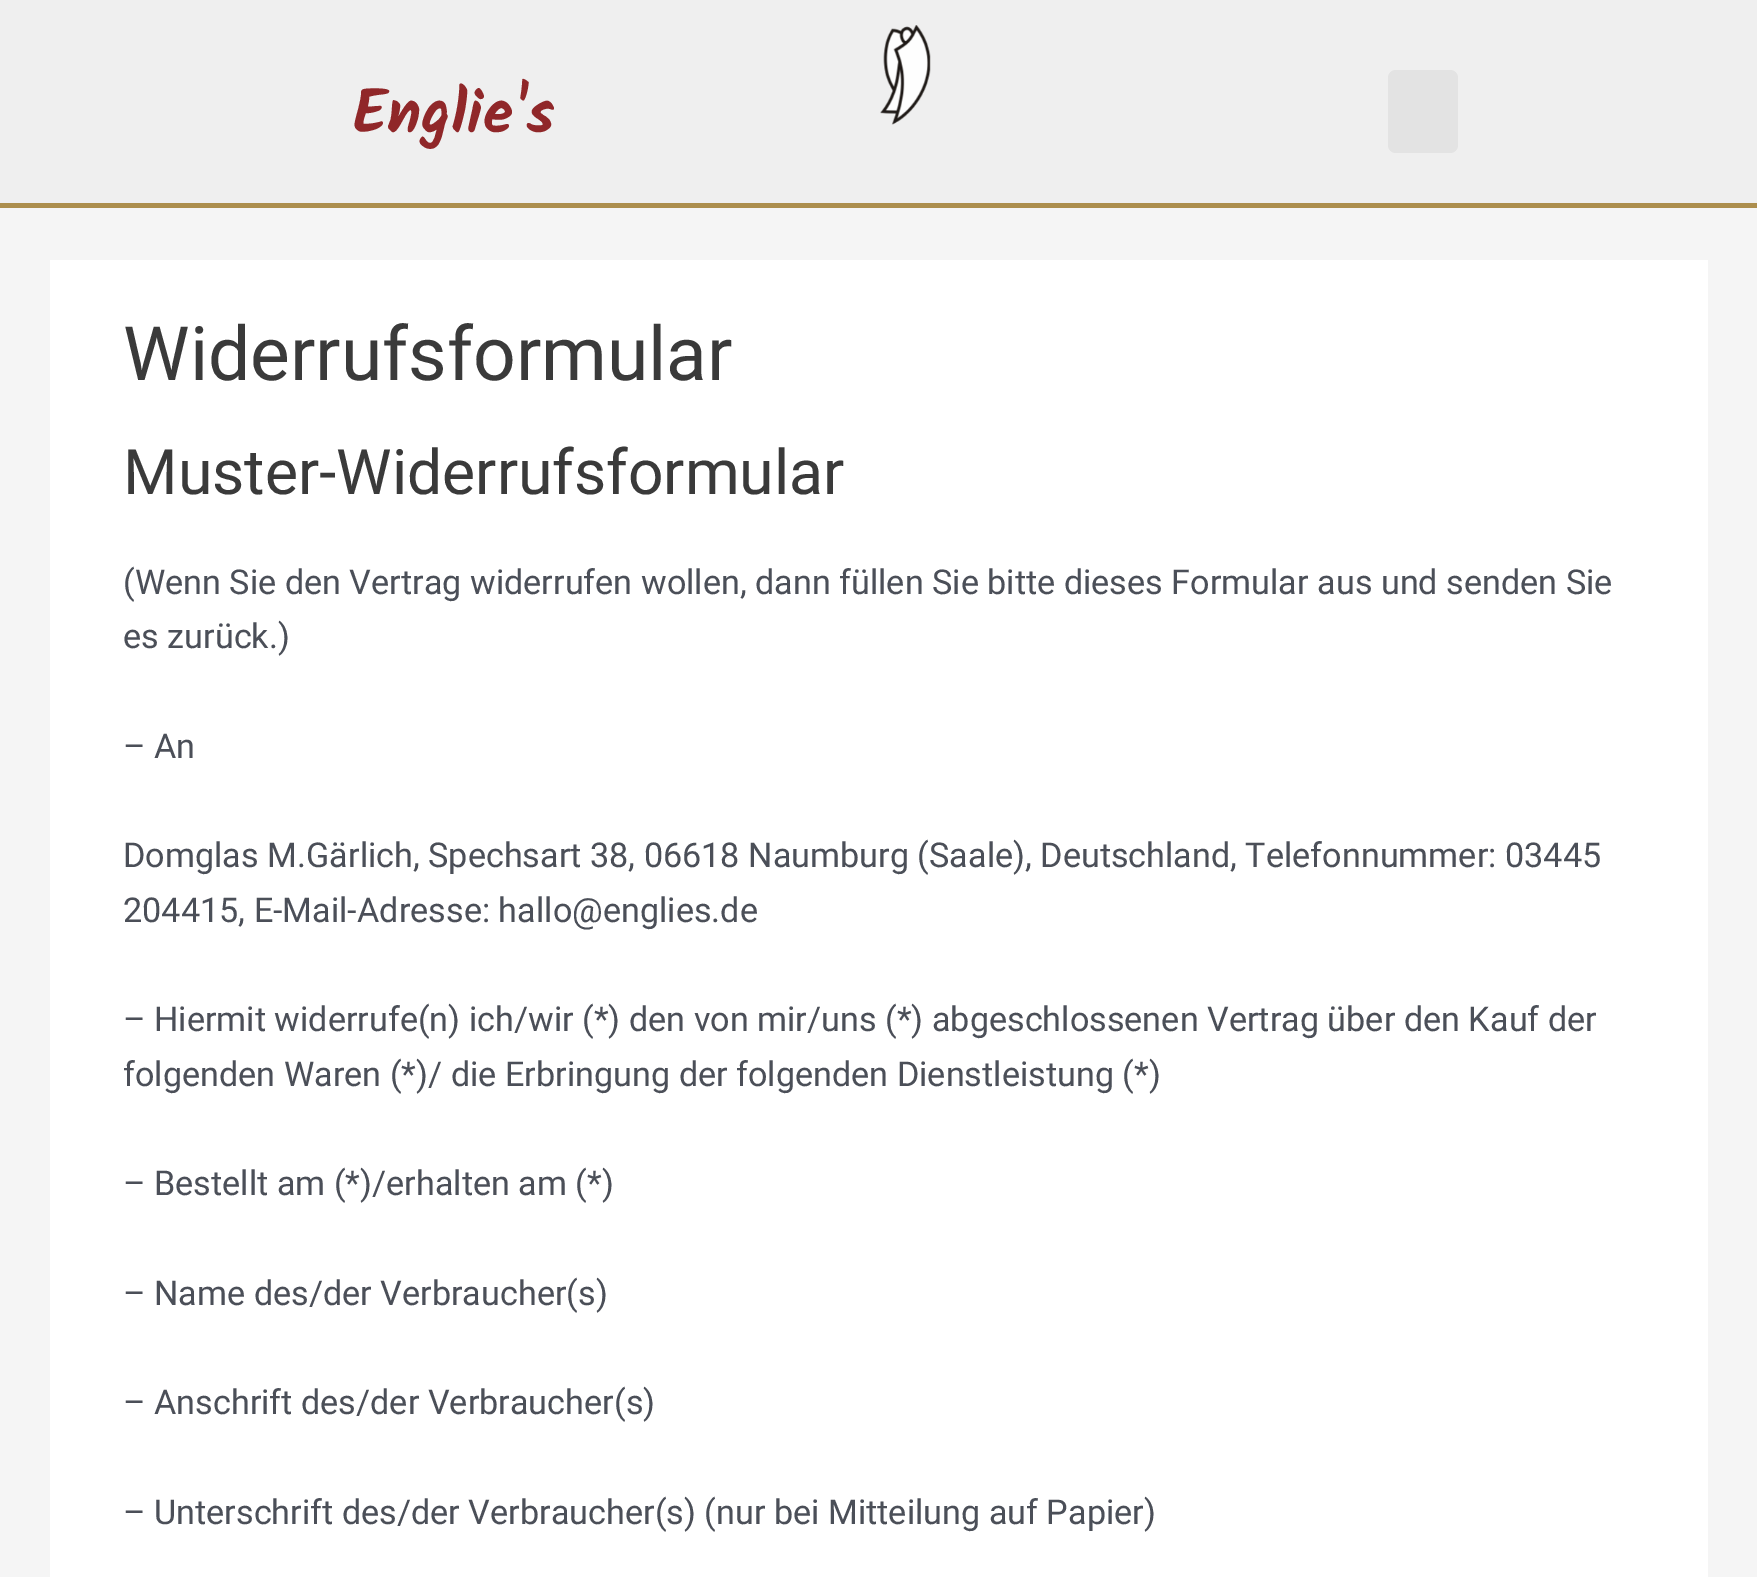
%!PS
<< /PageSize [1757 1577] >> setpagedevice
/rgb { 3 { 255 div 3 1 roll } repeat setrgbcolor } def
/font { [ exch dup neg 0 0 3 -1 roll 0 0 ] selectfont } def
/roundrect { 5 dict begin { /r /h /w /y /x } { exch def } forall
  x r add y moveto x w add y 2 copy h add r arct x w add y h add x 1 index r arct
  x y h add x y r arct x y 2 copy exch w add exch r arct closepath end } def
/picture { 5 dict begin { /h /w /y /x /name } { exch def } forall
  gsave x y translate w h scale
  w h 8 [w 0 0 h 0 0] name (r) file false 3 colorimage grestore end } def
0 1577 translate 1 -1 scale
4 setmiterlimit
245 245 245 rgb
0 0 1757 1577 rectfill
239 239 239 rgb
0 0 1757 203 rectfill
172 142 77 rgb
0 203 1757 5 rectfill
(img/1.rgb) 880 25 51 100 picture
227 227 227 rgb
1388 70 70 83 8 roundrect fill
255 255 255 rgb
50 260 1658 1317 rectfill
/Kalam-Bold 61.5 font
144 39 41 rgb
353 133 moveto (Englie's) show
/Roboto-Regular 75 font
58 58 58 rgb
123 380 moveto (Widerrufsformular) show
/Roboto-Regular 62.5 font
123 494 moveto (Muster-Widerrufsformular) show
/Roboto-Regular 34.2 font
75 79 88 rgb
[
  [(\(Wenn Sie den Vertrag widerrufen wollen, dann füllen Sie bitte dieses Formular aus und senden Sie) 123 594]
  [(es zurück.\)) 123 648]
  [(– An) 123 758]
  [(Domglas M.Gärlich, Spechsart 38, 06618 Naumburg \(Saale\), Deutschland, Telefonnummer: 03445) 123 867]
  [(204415, E-Mail-Adresse: hallo@englies.de) 123 922]
  [(– Hiermit widerrufe\(n\) ich/wir \(*\) den von mir/uns \(*\) abgeschlossenen Vertrag über den Kauf der) 123 1031]
  [(folgenden Waren \(*\)/ die Erbringung der folgenden Dienstleistung \(*\)) 123 1086]
  [(– Bestellt am \(*\)/erhalten am \(*\)) 123 1195]
  [(– Name des/der Verbraucher\(s\)) 123 1305]
  [(– Anschrift des/der Verbraucher\(s\)) 123 1414]
  [(– Unterschrift des/der Verbraucher\(s\) \(nur bei Mitteilung auf Papier\)) 123 1524]
] { aload pop moveto show } forall
showpage
